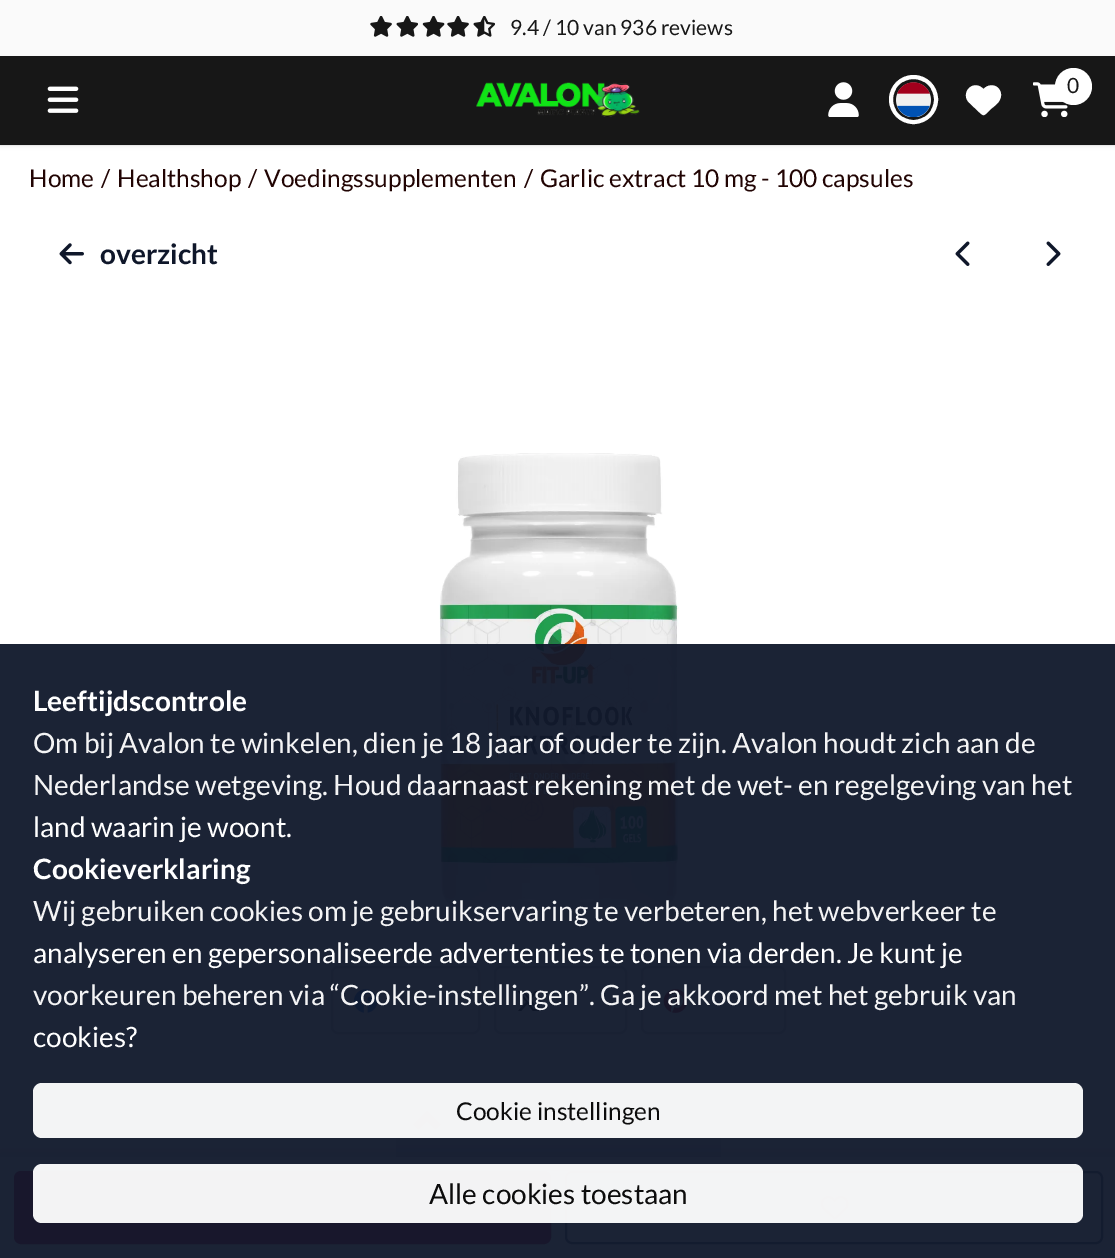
%!PS
<< /PageSize [1115 1258] /PageUsesTransparency true >> setpagedevice
/rgb { 3 { 255 div 3 1 roll } repeat setrgbcolor } def
/font { [ exch dup neg 0 0 3 -1 roll 0 0 ] selectfont } def
/alpha { dup .setfillconstantalpha .setstrokeconstantalpha } def
/circle { newpath 0 360 arc closepath } def
/roundrect { 5 dict begin { /r /h /w /y /x } { exch def } forall
  x r add y moveto x w add y 2 copy h add r arct x w add y h add x 1 index r arct
  x y h add x y r arct x y 2 copy exch w add exch r arct closepath end } def
/shadow { 12 dict begin { /a /b /q /h /w /y /x } { exch def } forall gsave /was 0 def
  9 -2 -9 { dup b mul 4 div /e exch def 1 sub .425 mul 2.718 exch exp 1 add a .99 .min exch div /now exch def
    1 1 now sub 1 was sub div sub alpha /was now def
    w h .min e 2 mul add 0 gt { x e sub y e sub w e 2 mul add h e 2 mul add
      q e add b .6 mul add w h .min 2 div e add .min 0 .max roundrect fill } if } for grestore end } def
/picture { 5 dict begin { /h /w /y /x /name } { exch def } forall
  gsave x y translate w h scale
  w h 8 [w 0 0 h 0 0] name (r) file false 3 colorimage grestore end } def
0 .pushpdf14devicefilter
0 1258 translate 1 -1 scale
4 setmiterlimit
255 255 255 rgb
0 0 1115 1258 rectfill
250 250 250 rgb
0 0 1115 56 rectfill
(img/1.rgb) 370 16 22 21 picture
(img/2.rgb) 396 16 22 21 picture
(img/3.rgb) 422 16 23 21 picture
(img/1.rgb) 447 16 22 21 picture
(img/4.rgb) 473 16 22 21 picture
0 0 0 rgb
0 58 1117 89 0 2 0.05 shadow
23 23 23 rgb
0 56 1115 89 rectfill
0.05 alpha
0 0 0 rgb
0 145 1115 1 rectfill
1 alpha
(img/5.rgb) 47 86 32 27 picture
(img/6.rgb) 476 82 164 35 picture
(img/7.rgb) 828 82 31 35 picture
255 255 255 rgb
4 setlinewidth
913.5 99.5 22.5 circle stroke
(img/8.rgb) 896 82 35 35 picture
969.5 103 moveto 979.5 112.5 lineto 983.5 116 983.5 116 987.5 112.5 curveto 991.5 108.5 lineto 994.5 106 998 103.5 999.5 100.5 curveto 1005.5 90 993 79.5 983.5 89 curveto 972.5 78 959.5 94 969.5 103 curveto closepath fill
(img/9.rgb) 1033 82 35 35 picture
1073.5 86.5 18.5 circle fill
(img/10.rgb) 59 243 25 22 picture
(img/11.rgb) 955 241 15 25 picture
(img/12.rgb) 1046 241 15 25 picture
(img/13.rgb) 439 453 240 459 picture
203 213 225 rgb
2 setlinewidth
332 967 147 66 6 roundrect stroke
(img/14.rgb) 354 989 24 24 picture
495 967 131 66 6 roundrect stroke
(img/15.rgb) 517 991 23 20 picture
642 967 143 66 6 roundrect stroke
(img/16.rgb) 663 989 25 24 picture
226 232 240 rgb
405 1094 moveto 712 1094 lineto 717 1094 721 1098 721 1103 curveto 721 1164 lineto 396 1164 lineto 396 1103 lineto 396 1098 400 1094 405 1094 curveto closepath fill
0 0 0 rgb
0 1157 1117 101 0 7 0.2 shadow
255 255 255 rgb
0 1157 1115 101 rectfill
190 18 72 rgb
15 1172 535 71 6 roundrect gsave fill grestore
stroke
100 116 139 rgb
566 1172 536 71 6 roundrect stroke
(img/17.rgb) 821 1195 28 25 picture
33 4 3 rgb
413 1124.5 moveto 418 1129.5 lineto 427 1121 lineto 436 1129.5 lineto 441 1124.5 lineto 427 1110.5 lineto closepath fill
0.95 alpha
15 23 42 rgb
0 644 1115 614 rectfill
255 255 255 rgb
33 1083 1050 55 9 roundrect fill
33 1164 1050 59 9 roundrect fill
/Lato-Regular 21 font
1 alpha
23 23 23 rgb
510 35 moveto (9.4 / 10 van 936 reviews) show
1067 93 moveto (0) show
/Lato-Regular 24.5 font
33 4 3 rgb
[
  [(Home) 29 187]
  [(/) 101 187]
  [(Healthshop) 117 187]
  [(/) 248 187]
  [(Voedingssupplementen) 264 187]
  [(/) 524 187]
  [(Garlic extract 10 mg - 100 capsules) 540 187]
] { aload pop moveto show } forall
/Lato-Bold 28 font
15 23 42 rgb
100 264 moveto (overzicht) show
255 255 255 rgb
33 711 moveto (Leeftijdscontrole) show
/Lato-Regular 28 font
244 244 245 rgb
33 753 moveto (Om bij Avalon te winkelen, dien je 18 jaar of ouder te zijn. Avalon houdt zich aan de) show
33 795 moveto (Nederlandse wetgeving. Houd daarnaast rekening met de wet- en regelgeving van het) show
255 255 255 rgb
33 837 moveto (land waarin je woont.) show
/Lato-Bold 28 font
33 879 moveto (Cookieverklaring) show
/Lato-Regular 28 font
244 244 245 rgb
33 921 moveto (Wij gebruiken cookies om je gebruikservaring te verbeteren, het webverkeer te) show
255 255 255 rgb
33 963 moveto (analyseren en gepersonaliseerde advertenties te tonen via derden. Je kunt je) show
244 244 245 rgb
33 1005 moveto (voorkeuren beheren via “Cookie-instellingen”. Ga je akkoord met het gebruik van) show
255 255 255 rgb
33 1047 moveto (cookies?) show
/Lato-Regular 24.5 font
12 12 12 rgb
456 1120 moveto (Cookie instellingen) show
/Lato-Regular 28 font
429 1204 moveto (Alle cookies toestaan) show
.poppdf14devicefilter showpage
